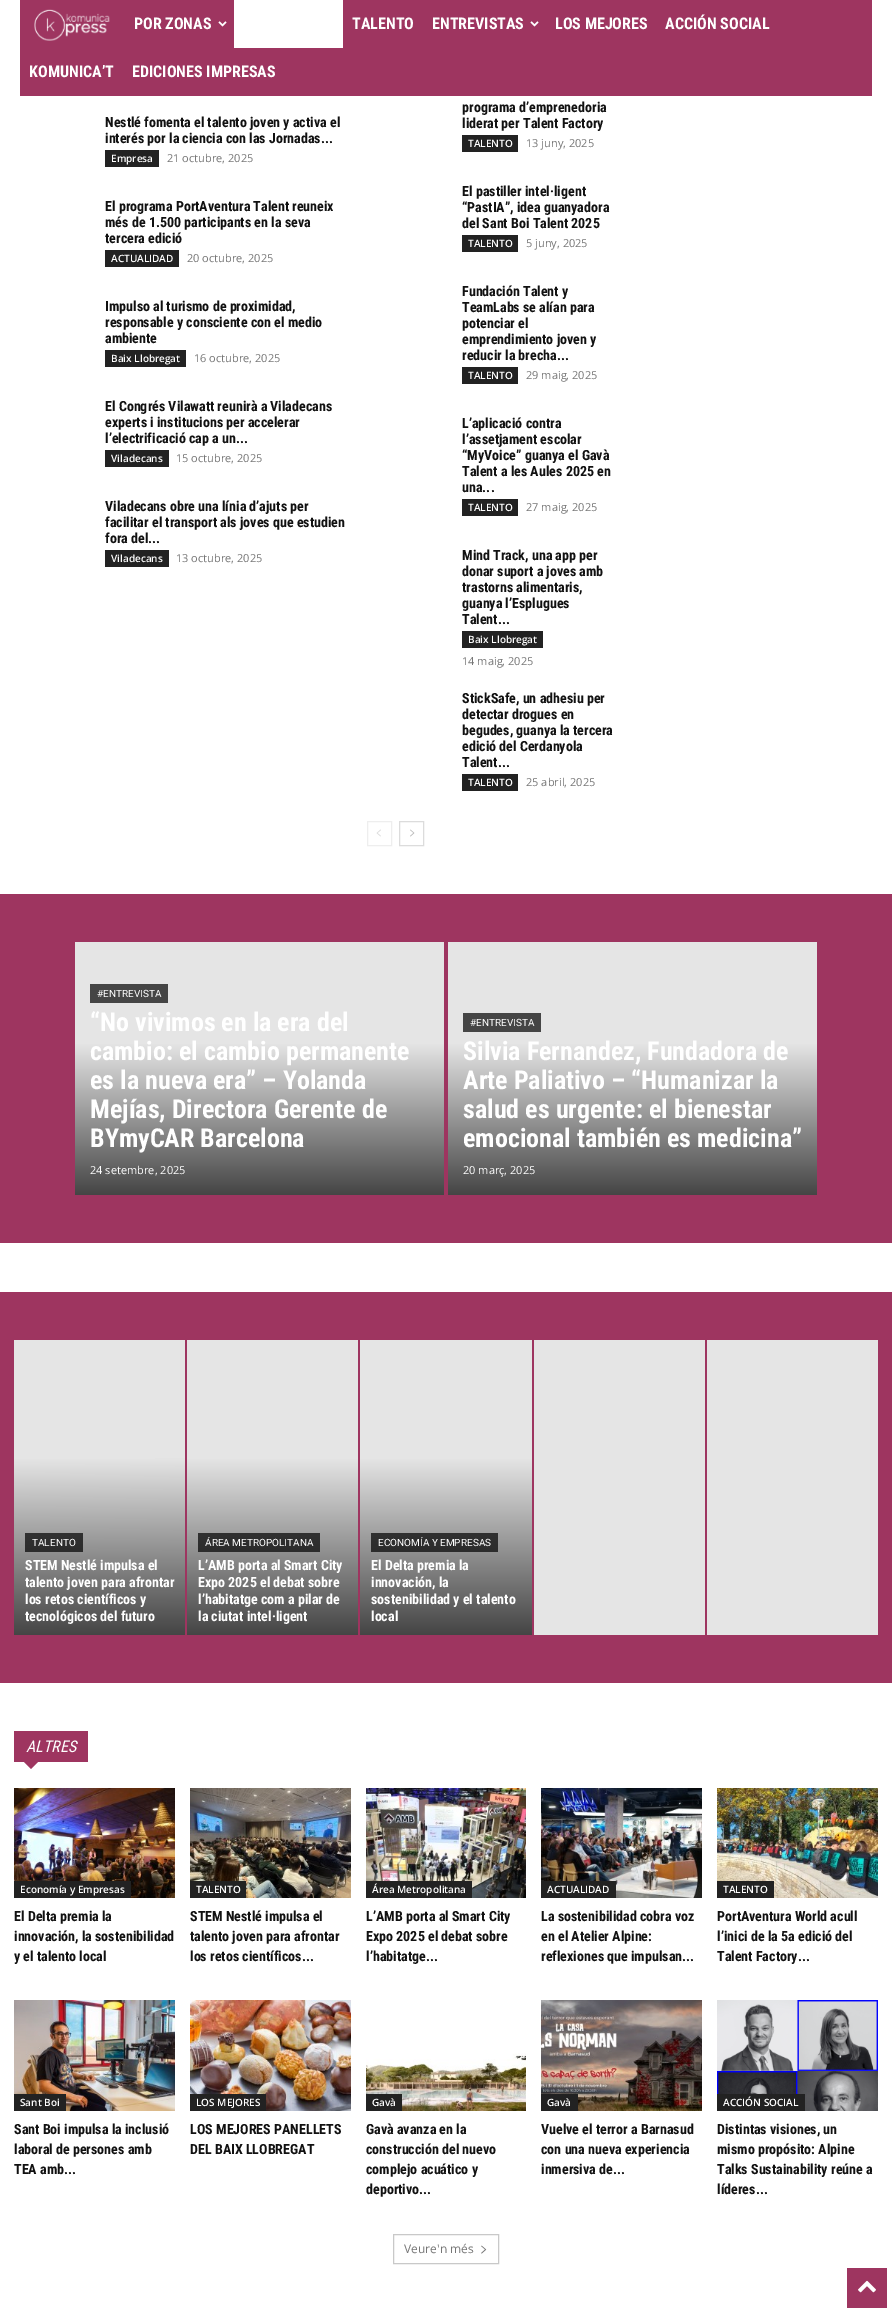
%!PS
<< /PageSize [892 2312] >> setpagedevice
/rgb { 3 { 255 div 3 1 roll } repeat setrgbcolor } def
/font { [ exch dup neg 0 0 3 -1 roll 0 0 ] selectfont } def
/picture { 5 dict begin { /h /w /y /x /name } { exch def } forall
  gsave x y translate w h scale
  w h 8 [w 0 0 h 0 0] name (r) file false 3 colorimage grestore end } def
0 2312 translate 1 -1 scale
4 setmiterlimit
255 255 255 rgb
0 0 892 2312 rectfill
158 53 96 rgb
20 0 852 96 rectfill
(img/1.rgb) 34 9 76 32 picture
(img/2.rgb) 218 21 9 6 picture
255 255 255 rgb
234 0 109 48 rectfill
(img/2.rgb) 530 21 9 6 picture
[
  [105 150 54 17 34 34 34]
  [105 250 74 17 34 34 34]
  [105 350 81 17 34 34 34]
  [105 450 64 17 34 34 34]
  [105 550 64 17 34 34 34]
  [462 135 56 17 34 34 34]
  [462 235 56 17 34 34 34]
  [462 367 56 17 34 34 34]
  [462 499 56 17 34 34 34]
  [462 631 81 17 34 34 34]
  [462 774 56 17 34 34 34]
] { aload pop rgb rectfill } forall
238 238 238 rgb
367.5 821.5 24 24 rectstroke
(img/3.rgb) 376 829 5 8 picture
220 220 220 rgb
399.5 821.5 24 24 rectstroke
(img/4.rgb) 410 829 5 8 picture
158 53 96 rgb
0 894 892 349 rectfill
gsave 75 942 moveto 444 942 lineto 444 1195 lineto 75 1195 lineto closepath clip newpath
<< /ShadingType 2 /ColorSpace /DeviceRGB /Coords [260 942 260 1195] /Extend [true true] /Function << /FunctionType 3 /Domain [0 1] /Functions [<< /FunctionType 2 /Domain [0 1] /C0 [0.898 0.898 0.898] /C1 [0.898 0.898 0.898] /N 1 >> << /FunctionType 2 /Domain [0 1] /C0 [0.898 0.898 0.898] /C1 [0.271 0.271 0.271] /N 1 >>] /Bounds [0.4] /Encode [0 1 0 1] >> >> shfill grestore
69 69 69 rgb
90 984 78 19 rectfill
gsave 448 942 moveto 817 942 lineto 817 1195 lineto 448 1195 lineto closepath clip newpath
<< /ShadingType 2 /ColorSpace /DeviceRGB /Coords [633 942 633 1195] /Extend [true true] /Function << /FunctionType 3 /Domain [0 1] /Functions [<< /FunctionType 2 /Domain [0 1] /C0 [0.898 0.898 0.898] /C1 [0.898 0.898 0.898] /N 1 >> << /FunctionType 2 /Domain [0 1] /C0 [0.898 0.898 0.898] /C1 [0.271 0.271 0.271] /N 1 >>] /Bounds [0.4] /Encode [0 1 0 1] >> >> shfill grestore
463 1013 78 19 rectfill
158 53 96 rgb
0 1292 892 391 rectfill
gsave 14 1340 moveto 185 1340 lineto 185 1635 lineto 14 1635 lineto closepath clip newpath
<< /ShadingType 2 /ColorSpace /DeviceRGB /Coords [99 1340 100 1635] /Extend [true true] /Function << /FunctionType 3 /Domain [0 1] /Functions [<< /FunctionType 2 /Domain [0 1] /C0 [0.898 0.898 0.898] /C1 [0.898 0.898 0.898] /N 1 >> << /FunctionType 2 /Domain [0 1] /C0 [0.898 0.898 0.898] /C1 [0.271 0.271 0.271] /N 1 >>] /Bounds [0.4] /Encode [0 1 0 1] >> >> shfill grestore
gsave 25 1533 moveto 83 1533 lineto 83 1552 lineto 25 1552 lineto closepath clip newpath
<< /ShadingType 2 /ColorSpace /DeviceRGB /Coords [99 1340 100 1635] /Extend [true true] /Function << /FunctionType 3 /Domain [0 1] /Functions [<< /FunctionType 2 /Domain [0 1] /C0 [0.271 0.271 0.271] /C1 [0.271 0.271 0.271] /N 1 >> << /FunctionType 2 /Domain [0 1] /C0 [0.271 0.271 0.271] /C1 [0.082 0.082 0.082] /N 1 >>] /Bounds [0.4] /Encode [0 1 0 1] >> >> shfill grestore
gsave 187 1340 moveto 358 1340 lineto 358 1635 lineto 187 1635 lineto closepath clip newpath
<< /ShadingType 2 /ColorSpace /DeviceRGB /Coords [273 1340 273 1635] /Extend [true true] /Function << /FunctionType 3 /Domain [0 1] /Functions [<< /FunctionType 2 /Domain [0 1] /C0 [0.898 0.898 0.898] /C1 [0.898 0.898 0.898] /N 1 >> << /FunctionType 2 /Domain [0 1] /C0 [0.898 0.898 0.898] /C1 [0.271 0.271 0.271] /N 1 >>] /Bounds [0.4] /Encode [0 1 0 1] >> >> shfill grestore
gsave 198 1533 moveto 320 1533 lineto 320 1552 lineto 198 1552 lineto closepath clip newpath
<< /ShadingType 2 /ColorSpace /DeviceRGB /Coords [273 1340 273 1635] /Extend [true true] /Function << /FunctionType 3 /Domain [0 1] /Functions [<< /FunctionType 2 /Domain [0 1] /C0 [0.271 0.271 0.271] /C1 [0.271 0.271 0.271] /N 1 >> << /FunctionType 2 /Domain [0 1] /C0 [0.271 0.271 0.271] /C1 [0.082 0.082 0.082] /N 1 >>] /Bounds [0.4] /Encode [0 1 0 1] >> >> shfill grestore
gsave 360 1340 moveto 532 1340 lineto 532 1635 lineto 360 1635 lineto closepath clip newpath
<< /ShadingType 2 /ColorSpace /DeviceRGB /Coords [446 1340 446 1635] /Extend [true true] /Function << /FunctionType 3 /Domain [0 1] /Functions [<< /FunctionType 2 /Domain [0 1] /C0 [0.898 0.898 0.898] /C1 [0.898 0.898 0.898] /N 1 >> << /FunctionType 2 /Domain [0 1] /C0 [0.898 0.898 0.898] /C1 [0.271 0.271 0.271] /N 1 >>] /Bounds [0.4] /Encode [0 1 0 1] >> >> shfill grestore
gsave 371 1533 moveto 498 1533 lineto 498 1552 lineto 371 1552 lineto closepath clip newpath
<< /ShadingType 2 /ColorSpace /DeviceRGB /Coords [446 1340 446 1635] /Extend [true true] /Function << /FunctionType 3 /Domain [0 1] /Functions [<< /FunctionType 2 /Domain [0 1] /C0 [0.271 0.271 0.271] /C1 [0.271 0.271 0.271] /N 1 >> << /FunctionType 2 /Domain [0 1] /C0 [0.271 0.271 0.271] /C1 [0.082 0.082 0.082] /N 1 >>] /Bounds [0.4] /Encode [0 1 0 1] >> >> shfill grestore
[
  [534 1340 171 295 229 229 229]
  [707 1340 171 295 229 229 229]
  [14 1731 74 31 158 53 96]
] { aload pop rgb rectfill } forall
24 1762 moveto 38 1762 lineto 31 1769 lineto closepath fill
(img/5.rgb) 14 1788 161 110 picture
34 34 34 rgb
14 1881 117 17 rectfill
(img/6.rgb) 190 1788 161 110 picture
190 1881 56 17 rectfill
(img/7.rgb) 366 1788 160 110 picture
366 1881 106 17 rectfill
(img/8.rgb) 541 1788 161 110 picture
541 1881 75 17 rectfill
(img/9.rgb) 717 1788 161 110 picture
717 1881 57 17 rectfill
(img/10.rgb) 14 2000 161 111 picture
14 2094 52 17 rectfill
(img/11.rgb) 190 2000 161 111 picture
190 2094 76 17 rectfill
(img/12.rgb) 366 2053 160 58 picture
366 2094 36 17 rectfill
(img/13.rgb) 541 2000 161 111 picture
541 2094 37 17 rectfill
(img/14.rgb) 717 2000 161 111 picture
717 2094 88 17 rectfill
201 201 201 rgb
393.5 2234.5 105 29 rectstroke
(img/15.rgb) 481 2245 6 9 picture
158 53 96 rgb
847 2268 40 40 rectfill
(img/16.rgb) 858 2280 18 13 picture
/RobotoCondensed-Bold 16 font
255 255 255 rgb
[
  [(POR ZONAS) 134 29]
  [(TALENTO) 352 29]
  [(ENTREVISTAS) 432 29]
  [(LOS MEJORES) 555 29]
  [(ACCIÓN SOCIAL) 665 29]
  [(KOMUNICA’T) 29 77]
  [(EDICIONES IMPRESAS) 132 77]
] { aload pop moveto show } forall
/RobotoCondensed-Bold 14 font
17 17 17 rgb
105 127 moveto (Nestlé fomenta el talento joven y activa el) show
105 143 moveto (interés por la ciencia con las Jornadas...) show
/OpenSans-SemiBold 10 font
255 255 255 rgb
111 162 moveto (Empresa) show
/OpenSans-Regular 11 font
118 118 118 rgb
167 162 moveto (21 octubre, 2025) show
/RobotoCondensed-Bold 14 font
17 17 17 rgb
[
  [(El programa PortAventura Talent reuneix) 105 211]
  [(més de 1.500 participants en la seva) 105 227]
  [(tercera edició) 105 243]
] { aload pop moveto show } forall
/OpenSans-SemiBold 10 font
255 255 255 rgb
111 262 moveto (ACTUALIDAD) show
/OpenSans-Regular 11 font
118 118 118 rgb
187 262 moveto (20 octubre, 2025) show
/RobotoCondensed-Bold 14 font
17 17 17 rgb
[
  [(Impulso al turismo de proximidad,) 105 311]
  [(responsable y consciente con el medio) 105 327]
  [(ambiente) 105 343]
] { aload pop moveto show } forall
/OpenSans-SemiBold 10 font
255 255 255 rgb
111 362 moveto (Baix Llobregat) show
/OpenSans-Regular 11 font
118 118 118 rgb
194 362 moveto (16 octubre, 2025) show
/RobotoCondensed-Bold 14 font
17 17 17 rgb
[
  [(El Congrés Vilawatt reunirà a Viladecans) 105 411]
  [(experts i institucions per accelerar) 105 427]
  [(l’electrificació cap a un...) 105 443]
] { aload pop moveto show } forall
/OpenSans-SemiBold 10 font
255 255 255 rgb
111 462 moveto (Viladecans) show
/OpenSans-Regular 11 font
118 118 118 rgb
176 462 moveto (15 octubre, 2025) show
/RobotoCondensed-Bold 14 font
17 17 17 rgb
[
  [(Viladecans obre una línia d’ajuts per) 105 511]
  [(facilitar el transport als joves que estudien) 105 527]
  [(fora del...) 105 543]
] { aload pop moveto show } forall
/OpenSans-SemiBold 10 font
255 255 255 rgb
111 562 moveto (Viladecans) show
/OpenSans-Regular 11 font
118 118 118 rgb
176 562 moveto (13 octubre, 2025) show
/RobotoCondensed-Bold 14 font
17 17 17 rgb
462 112 moveto (programa d’emprenedoria) show
462 128 moveto (liderat per Talent Factory) show
/OpenSans-SemiBold 10 font
255 255 255 rgb
468 147 moveto (TALENTO) show
/OpenSans-Regular 11 font
118 118 118 rgb
526 147 moveto (13 juny, 2025) show
/RobotoCondensed-Bold 14 font
17 17 17 rgb
[
  [(El pastiller intel·ligent) 462 196]
  [(“PastIA”, idea guanyadora) 462 212]
  [(del Sant Boi Talent 2025) 462 228]
] { aload pop moveto show } forall
/OpenSans-SemiBold 10 font
255 255 255 rgb
468 247 moveto (TALENTO) show
/OpenSans-Regular 11 font
118 118 118 rgb
526 247 moveto (5 juny, 2025) show
/RobotoCondensed-Bold 14 font
17 17 17 rgb
[
  [(Fundación Talent y) 462 296]
  [(TeamLabs se alían para) 462 312]
  [(potenciar el) 462 328]
  [(emprendimiento joven y) 462 344]
  [(reducir la brecha...) 462 360]
] { aload pop moveto show } forall
/OpenSans-SemiBold 10 font
255 255 255 rgb
468 379 moveto (TALENTO) show
/OpenSans-Regular 11 font
118 118 118 rgb
526 379 moveto (29 maig, 2025) show
/RobotoCondensed-Bold 14 font
17 17 17 rgb
[
  [(L’aplicació contra) 462 428]
  [(l’assetjament escolar) 462 444]
  [(“MyVoice” guanya el Gavà) 462 460]
  [(Talent a les Aules 2025 en) 462 476]
  [(una...) 462 492]
] { aload pop moveto show } forall
/OpenSans-SemiBold 10 font
255 255 255 rgb
468 511 moveto (TALENTO) show
/OpenSans-Regular 11 font
118 118 118 rgb
526 511 moveto (27 maig, 2025) show
/RobotoCondensed-Bold 14 font
17 17 17 rgb
[
  [(Mind Track, una app per) 462 560]
  [(donar suport a joves amb) 462 576]
  [(trastorns alimentaris,) 462 592]
  [(guanya l’Esplugues) 462 608]
  [(Talent...) 462 624]
] { aload pop moveto show } forall
/OpenSans-SemiBold 10 font
255 255 255 rgb
468 643 moveto (Baix Llobregat) show
/OpenSans-Regular 11 font
118 118 118 rgb
462 665 moveto (14 maig, 2025) show
/RobotoCondensed-Bold 14 font
17 17 17 rgb
[
  [(StickSafe, un adhesiu per) 462 703]
  [(detectar drogues en) 462 719]
  [(begudes, guanya la tercera) 462 735]
  [(edició del Cerdanyola) 462 751]
  [(Talent...) 462 767]
] { aload pop moveto show } forall
/OpenSans-SemiBold 10 font
255 255 255 rgb
468 786 moveto (TALENTO) show
/OpenSans-Regular 11 font
118 118 118 rgb
526 786 moveto (25 abril, 2025) show
/Roboto-Regular 10 font
255 255 255 rgb
97 997 moveto (#ENTREVISTA) show
/RobotoCondensed-Bold 26 font
[
  [(“No vivimos en la era del) 90 1031]
  [(cambio: el cambio permanente) 90 1060]
  [(es la nueva era” – Yolanda) 90 1089]
  [(Mejías, Directora Gerente de) 90 1118]
  [(BYmyCAR Barcelona) 90 1147]
] { aload pop moveto show } forall
/OpenSans-Regular 11 font
90 1174 moveto (24 setembre, 2025) show
/Roboto-Regular 10 font
470 1026 moveto (#ENTREVISTA) show
/RobotoCondensed-Bold 26 font
[
  [(Silvia Fernandez, Fundadora de) 463 1060]
  [(Arte Paliativo – “Humanizar la) 463 1089]
  [(salud es urgente: el bienestar) 463 1118]
  [(emocional también es medicina”) 463 1147]
] { aload pop moveto show } forall
/OpenSans-Regular 11 font
463 1174 moveto (20 març, 2025) show
/Roboto-Regular 10 font
32 1546 moveto (TALENTO) show
/RobotoCondensed-Bold 14 font
[
  [(STEM Nestlé impulsa el) 25 1570]
  [(talento joven para afrontar) 25 1587]
  [(los retos científicos y) 25 1604]
  [(tecnológicos del futuro) 25 1621]
] { aload pop moveto show } forall
/Roboto-Regular 10 font
205 1546 moveto (ÁREA METROPOLITANA) show
/RobotoCondensed-Bold 14 font
[
  [(L’AMB porta al Smart City) 198 1570]
  [(Expo 2025 el debat sobre) 198 1587]
  [(l’habitatge com a pilar de) 198 1604]
  [(la ciutat intel·ligent) 198 1621]
] { aload pop moveto show } forall
/Roboto-Regular 10 font
378 1546 moveto (ECONOMÍA Y EMPRESAS) show
/RobotoCondensed-Bold 14 font
[
  [(El Delta premia la) 371 1570]
  [(innovación, la) 371 1587]
  [(sostenibilidad y el talento) 371 1604]
  [(local) 371 1621]
] { aload pop moveto show } forall
/RobotoCondensed-Italic 16 font
26 1752 moveto (ALTRES) show
/OpenSans-SemiBold 10 font
20 1893 moveto (Economía y Empresas) show
/RobotoCondensed-Bold 14 font
17 17 17 rgb
[
  [(El Delta premia la) 14 1921]
  [(innovación, la sostenibilidad) 14 1941]
  [(y el talento local) 14 1961]
] { aload pop moveto show } forall
/OpenSans-SemiBold 10 font
255 255 255 rgb
196 1893 moveto (TALENTO) show
/RobotoCondensed-Bold 14 font
17 17 17 rgb
[
  [(STEM Nestlé impulsa el) 190 1921]
  [(talento joven para afrontar) 190 1941]
  [(los retos científicos...) 190 1961]
] { aload pop moveto show } forall
/OpenSans-SemiBold 10 font
255 255 255 rgb
372 1893 moveto (Área Metropolitana) show
/RobotoCondensed-Bold 14 font
17 17 17 rgb
[
  [(L’AMB porta al Smart City) 366 1921]
  [(Expo 2025 el debat sobre) 366 1941]
  [(l’habitatge...) 366 1961]
] { aload pop moveto show } forall
/OpenSans-SemiBold 10 font
255 255 255 rgb
547 1893 moveto (ACTUALIDAD) show
/RobotoCondensed-Bold 14 font
17 17 17 rgb
[
  [(La sostenibilidad cobra voz) 541 1921]
  [(en el Atelier Alpine:) 541 1941]
  [(reflexiones que impulsan...) 541 1961]
] { aload pop moveto show } forall
/OpenSans-SemiBold 10 font
255 255 255 rgb
723 1893 moveto (TALENTO) show
/RobotoCondensed-Bold 14 font
17 17 17 rgb
[
  [(PortAventura World acull) 717 1921]
  [(l’inici de la 5a edició del) 717 1941]
  [(Talent Factory...) 717 1961]
] { aload pop moveto show } forall
/OpenSans-SemiBold 10 font
255 255 255 rgb
20 2106 moveto (Sant Boi) show
/RobotoCondensed-Bold 14 font
17 17 17 rgb
[
  [(Sant Boi impulsa la inclusió) 14 2134]
  [(laboral de persones amb) 14 2154]
  [(TEA amb...) 14 2174]
] { aload pop moveto show } forall
/OpenSans-SemiBold 10 font
255 255 255 rgb
196 2106 moveto (LOS MEJORES) show
/RobotoCondensed-Bold 14 font
17 17 17 rgb
190 2134 moveto (LOS MEJORES PANELLETS) show
190 2154 moveto (DEL BAIX LLOBREGAT) show
/OpenSans-SemiBold 10 font
255 255 255 rgb
372 2106 moveto (Gavà) show
/RobotoCondensed-Bold 14 font
17 17 17 rgb
[
  [(Gavà avanza en la) 366 2134]
  [(construcción del nuevo) 366 2154]
  [(complejo acuático y) 366 2174]
  [(deportivo...) 366 2194]
] { aload pop moveto show } forall
/OpenSans-SemiBold 10 font
255 255 255 rgb
547 2106 moveto (Gavà) show
/RobotoCondensed-Bold 14 font
17 17 17 rgb
[
  [(Vuelve el terror a Barnasud) 541 2134]
  [(con una nueva experiencia) 541 2154]
  [(inmersiva de...) 541 2174]
] { aload pop moveto show } forall
/OpenSans-SemiBold 10 font
255 255 255 rgb
723 2106 moveto (ACCIÓN SOCIAL) show
/RobotoCondensed-Bold 14 font
17 17 17 rgb
[
  [(Distintas visiones, un) 717 2134]
  [(mismo propósito: Alpine) 717 2154]
  [(Talks Sustainability reúne a) 717 2174]
  [(líderes...) 717 2194]
] { aload pop moveto show } forall
/OpenSans-Regular 12 font
118 118 118 rgb
404 2253 moveto (Veure'n més) show
showpage
